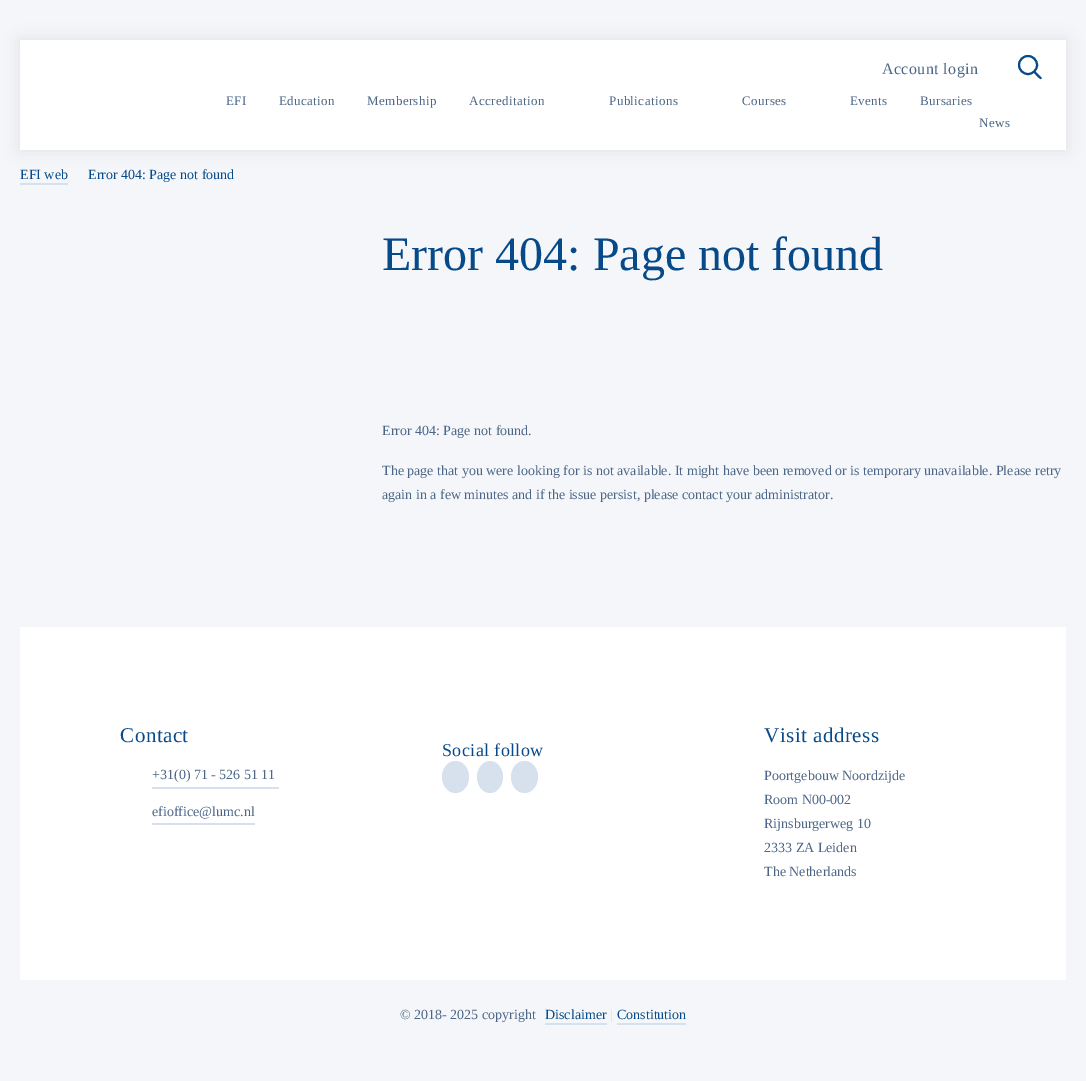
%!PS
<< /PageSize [1086 1081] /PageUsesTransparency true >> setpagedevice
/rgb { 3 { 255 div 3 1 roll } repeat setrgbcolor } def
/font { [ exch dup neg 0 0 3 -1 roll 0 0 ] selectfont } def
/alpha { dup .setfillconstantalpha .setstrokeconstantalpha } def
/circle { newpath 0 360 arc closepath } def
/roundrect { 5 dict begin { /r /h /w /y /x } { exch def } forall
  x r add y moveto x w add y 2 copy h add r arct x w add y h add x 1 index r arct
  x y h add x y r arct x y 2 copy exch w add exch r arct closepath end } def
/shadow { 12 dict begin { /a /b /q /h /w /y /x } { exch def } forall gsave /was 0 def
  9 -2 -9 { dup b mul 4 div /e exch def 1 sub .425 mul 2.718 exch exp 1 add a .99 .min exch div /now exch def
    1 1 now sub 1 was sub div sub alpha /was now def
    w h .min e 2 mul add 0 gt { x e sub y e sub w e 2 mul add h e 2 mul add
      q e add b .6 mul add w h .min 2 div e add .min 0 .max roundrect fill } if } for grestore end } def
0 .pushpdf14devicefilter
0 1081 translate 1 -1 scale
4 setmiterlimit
244 246 249 rgb
0 0 1086 1081 rectfill
0 0 0 rgb
20 40 1046 110 0 8 0.08 shadow
255 255 255 rgb
20 40 1046 110 rectfill
6 74 137 rgb
1035 71 moveto 1041.5 77.5 lineto 1042 78 1041.5 79 1041 79 curveto 1040 79.5 1036.5 75.5 1035.5 74.5 curveto 1034.5 73.5 1032 71 1034.5 71 curveto closepath fill
2 setlinewidth
1028 65 9 circle stroke
[
  [20 183 48 2 215 225 237]
  [20 627 1046 353 255 255 255]
  [152 787 127 2 215 225 237]
  [152 823 103 2 215 225 237]
] { aload pop rgb rectfill } forall
455.5 761 moveto 463 761 469 768 469 777 curveto 469 786 463 793 455.5 793 curveto 448 793 442 786 442 777 curveto 442 768 448 761 455.5 761 curveto closepath fill
490 761 moveto 497 761 503 768 503 777 curveto 503 786 497 793 490 793 curveto 483 793 477 786 477 777 curveto 477 768 483 761 490 761 curveto closepath fill
524.5 761 moveto 532 761 538 768 538 777 curveto 538 786 532 793 524.5 793 curveto 517 793 511 786 511 777 curveto 511 768 517 761 524.5 761 curveto closepath fill
545 1023 62 2 rectfill
617 1023 69 2 rectfill
/LiberationSerif-Regular 16 font
75 102 134 rgb
882 74 moveto 0.4 0 (Account login) ashow
/LiberationSerif-Regular 13 font
226 105 moveto 0.4 0 (EFI) ashow
279 105 moveto 0.4 0 (Education) ashow
367 105 moveto 0.4 0 (Membership) ashow
469 105 moveto 0.4 0 (Accreditation) ashow
609 105 moveto 0.4 0 (Publications) ashow
742 105 moveto 0.4 0 (Courses) ashow
850 105 moveto 0.4 0 (Events) ashow
920 105 moveto 0.4 0 (Bursaries) ashow
979 127 moveto 0.4 0 (News) ashow
/LiberationSerif-Regular 14 font
6 74 137 rgb
20 179 moveto (EFI web) show
88 179 moveto (Error 404: Page not found) show
/LiberationSerif-Regular 48 font
382 270 moveto (Error 404: Page not found) show
/LiberationSerif-Regular 14 font
75 102 134 rgb
[
  [(Error 404: Page not found.) 382 435]
  [(The page that you were looking for is not available. It might have been removed or is temporary unavailable. Please retry) 382 475]
  [(again in a few minutes and if the issue persist, please contact your administrator.) 382 499]
] { aload pop moveto show } forall
/LiberationSerif-Regular 21 font
6 74 137 rgb
120 742 moveto 0.5 0 (Contact) ashow
/LiberationSerif-Regular 14 font
75 102 134 rgb
152 779 moveto (+31\(0\) 71 - 526 51 11) show
152 816 moveto (efioffice@lumc.nl) show
/LiberationSerif-Regular 18 font
6 74 137 rgb
442 756 moveto 0.4 0 (Social follow) ashow
/LiberationSerif-Regular 21 font
764 742 moveto 0.5 0 (Visit address) ashow
/LiberationSerif-Regular 14 font
75 102 134 rgb
[
  [(Poortgebouw Noordzijde) 764 780]
  [(Room N00-002) 764 804]
  [(Rijnsburgerweg 10) 764 828]
  [(2333 ZA Leiden) 764 852]
  [(The Netherlands) 764 876]
  [(© 2018- 2025 copyright) 400 1019]
] { aload pop moveto show } forall
6 74 137 rgb
545 1019 moveto (Disclaimer) show
215 225 237 rgb
610 1019 moveto (|) show
6 74 137 rgb
617 1019 moveto (Constitution) show
.poppdf14devicefilter showpage
